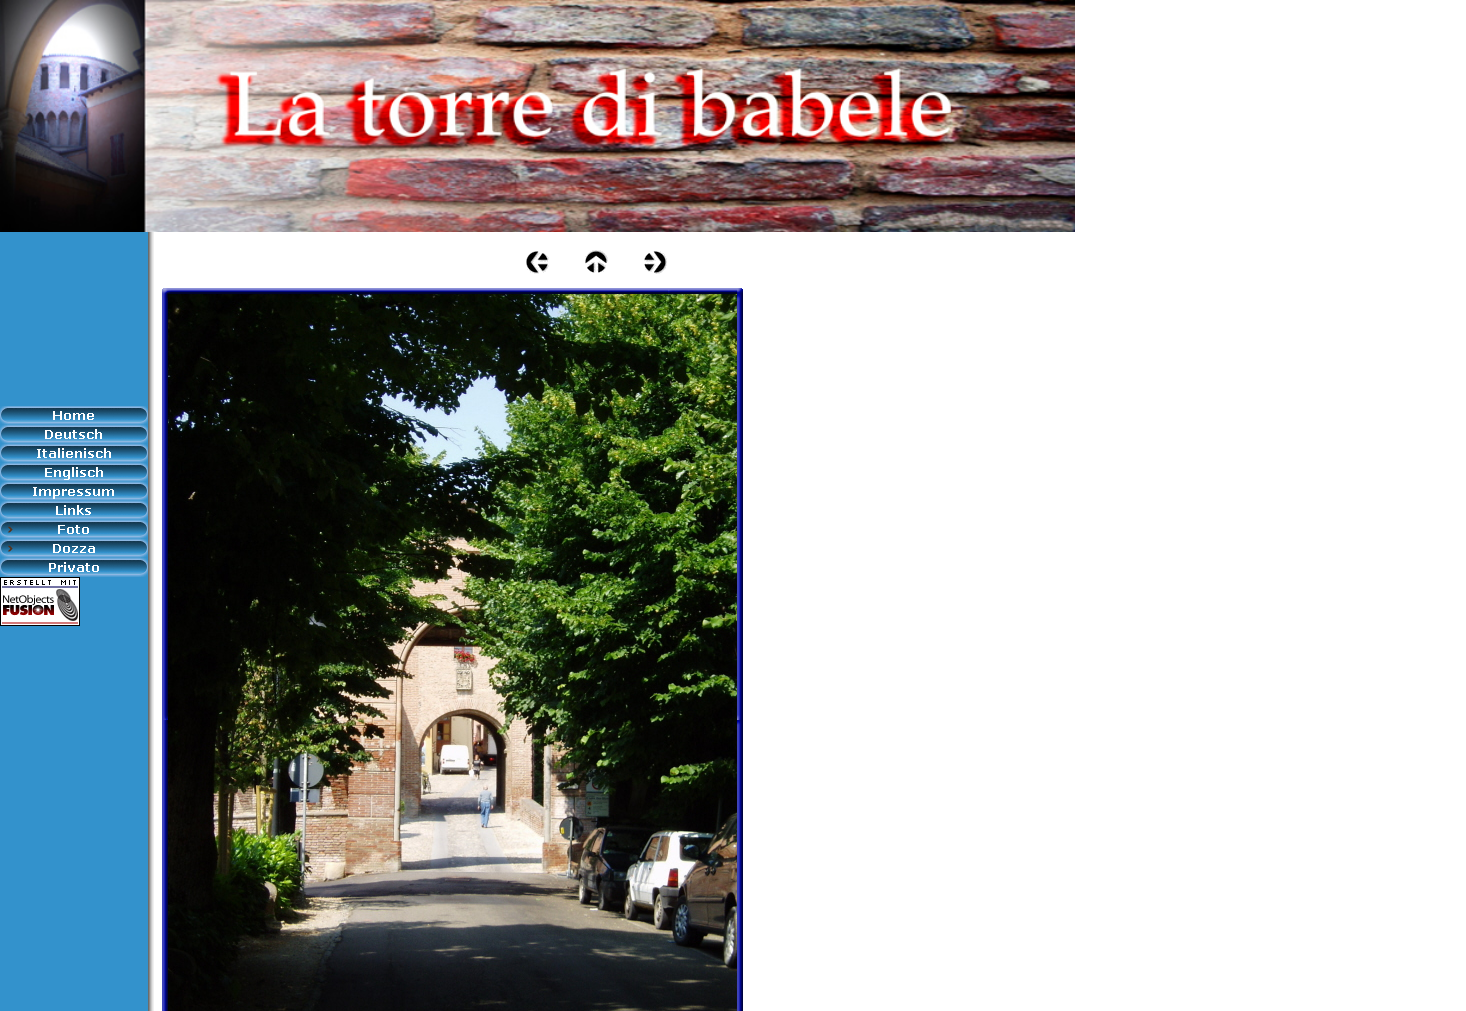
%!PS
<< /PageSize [1466 1011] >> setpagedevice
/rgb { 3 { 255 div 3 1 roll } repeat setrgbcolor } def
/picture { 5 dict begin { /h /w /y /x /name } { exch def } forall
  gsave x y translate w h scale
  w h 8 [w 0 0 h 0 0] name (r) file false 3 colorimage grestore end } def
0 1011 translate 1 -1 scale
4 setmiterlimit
255 255 255 rgb
0 0 1466 1011 rectfill
(img/1.rgb) 0 0 1075 232 picture
(img/2.rgb) 0 232 154 174 picture
(img/3.rgb) 0 406 154 605 picture
(img/4.rgb) 0 406 148 19 picture
(img/5.rgb) 0 425 148 19 picture
(img/6.rgb) 0 444 148 19 picture
(img/7.rgb) 0 463 148 19 picture
(img/8.rgb) 0 482 148 19 picture
(img/9.rgb) 0 501 148 19 picture
(img/10.rgb) 0 520 148 19 picture
(img/11.rgb) 0 539 148 19 picture
(img/12.rgb) 0 558 148 19 picture
(img/13.rgb) 0 577 80 49 picture
(img/14.rgb) 526 251 23 23 picture
(img/15.rgb) 585 250 23 23 picture
(img/16.rgb) 644 251 23 23 picture
(img/17.rgb) 162 288 6 6 picture
(img/18.rgb) 168 288 569 6 picture
(img/19.rgb) 737 288 6 6 picture
(img/20.rgb) 162 294 6 717 picture
(img/21.rgb) 168 294 569 717 picture
(img/22.rgb) 737 294 6 717 picture
showpage
